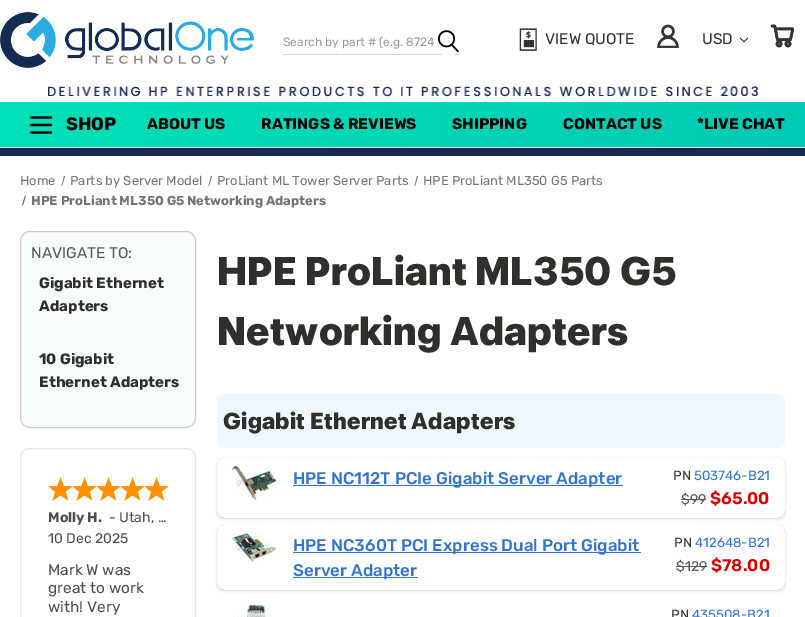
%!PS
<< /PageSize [805 617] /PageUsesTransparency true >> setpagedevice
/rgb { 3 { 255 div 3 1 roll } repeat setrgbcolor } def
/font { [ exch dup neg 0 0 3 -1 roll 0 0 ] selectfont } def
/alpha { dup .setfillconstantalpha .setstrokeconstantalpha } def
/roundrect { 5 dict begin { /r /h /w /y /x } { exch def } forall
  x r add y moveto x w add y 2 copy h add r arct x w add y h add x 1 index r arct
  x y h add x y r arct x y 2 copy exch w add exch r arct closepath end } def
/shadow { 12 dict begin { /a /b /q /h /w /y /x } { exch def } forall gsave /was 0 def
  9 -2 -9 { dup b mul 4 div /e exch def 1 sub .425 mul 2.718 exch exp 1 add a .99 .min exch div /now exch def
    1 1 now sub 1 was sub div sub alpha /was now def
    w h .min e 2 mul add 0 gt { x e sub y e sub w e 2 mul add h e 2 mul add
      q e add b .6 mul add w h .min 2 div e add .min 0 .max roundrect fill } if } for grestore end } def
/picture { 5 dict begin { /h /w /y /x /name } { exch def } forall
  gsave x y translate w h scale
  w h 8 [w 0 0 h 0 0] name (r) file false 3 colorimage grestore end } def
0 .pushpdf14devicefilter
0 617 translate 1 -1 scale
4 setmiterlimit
255 255 255 rgb
0 0 805 617 rectfill
229 229 229 rgb
0 147 805 1 rectfill
(img/1.rgb) 0 12 254 56 picture
215 215 215 rgb
283 54 177 1 rectfill
255 255 255 rgb
436 29 24 27 12 roundrect fill
(img/2.rgb) 437 30 22 23 picture
(img/3.rgb) 519 28 18 23 picture
(img/4.rgb) 657 24 22 24 picture
(img/5.rgb) 740 37 8 6 picture
(img/6.rgb) 770 24 24 24 picture
(img/7.rgb) 48 86 710 11 picture
24 42 82 rgb
0 148 805 8 rectfill
0 0 0 rgb
0 104 805 45 0 2 0.08 shadow
gsave 0 102 moveto 805 102 lineto 805 147 lineto 0 147 lineto closepath clip newpath
<< /ShadingType 2 /ColorSpace /DeviceRGB /Coords [0 125 805 124] /Extend [true true] /Function << /FunctionType 2 /Domain [0 1] /C0 [0 0.878 0.722] /C1 [0 0.792 0.706] /N 1 >> >> shfill grestore
(img/8.rgb) 29 116 24 18 picture
117 117 117 rgb
64 176 moveto 65 176 lineto 62 186 lineto 61.5 186 lineto closepath fill
211 176 moveto 212 176 lineto 209 186 lineto 208.5 186 lineto closepath fill
417 176 moveto 418 176 lineto 415 186 lineto 414.5 186 lineto closepath fill
25 195.5 moveto 26 195.5 lineto 23 205.5 lineto 22 205.5 lineto closepath fill
247 253 252 rgb
20.5 231.5 175 196 9.5 roundrect gsave fill grestore
204 204 204 rgb
stroke
229 229 229 rgb
20.5 448.5 175 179 9.5 roundrect stroke
(img/9.rgb) 48 477 24 24 picture
(img/9.rgb) 72 477 24 24 picture
(img/9.rgb) 96 477 24 24 picture
(img/9.rgb) 120 477 24 24 picture
(img/9.rgb) 144 477 24 24 picture
240 248 255 rgb
217 394 568 54 7 roundrect fill
gsave
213 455 moveto 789 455 lineto 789 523 lineto 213 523 lineto closepath 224 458 moveto 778 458 lineto 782 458 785 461 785 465 curveto 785 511 lineto 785 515 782 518 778 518 curveto 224 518 lineto 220 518 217 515 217 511 curveto 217 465 lineto 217 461 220 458 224 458 curveto closepath eoclip newpath
0 0 0 rgb
217 459 568 60 7 1 0.06 shadow
grestore
gsave
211 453 moveto 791 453 lineto 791 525 lineto 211 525 lineto closepath 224 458 moveto 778 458 lineto 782 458 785 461 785 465 curveto 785 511 lineto 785 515 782 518 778 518 curveto 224 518 lineto 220 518 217 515 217 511 curveto 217 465 lineto 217 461 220 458 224 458 curveto closepath eoclip newpath
0 0 0 rgb
217 459 568 60 7 1.5 0.1 shadow
grestore
(img/10.rgb) 232 466 44 34 picture
52 116 203 rgb
293 485 330 1 rectfill
89 89 89 rgb
681 499 25 1 rectfill
gsave
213 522 moveto 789 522 lineto 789 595 lineto 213 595 lineto closepath 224 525 moveto 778 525 lineto 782 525 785 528 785 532 curveto 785 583 lineto 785 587 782 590 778 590 curveto 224 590 lineto 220 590 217 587 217 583 curveto 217 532 lineto 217 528 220 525 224 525 curveto closepath eoclip newpath
0 0 0 rgb
217 526 568 65 7 1 0.06 shadow
grestore
gsave
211 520 moveto 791 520 lineto 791 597 lineto 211 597 lineto closepath 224 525 moveto 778 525 lineto 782 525 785 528 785 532 curveto 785 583 lineto 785 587 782 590 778 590 curveto 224 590 lineto 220 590 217 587 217 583 curveto 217 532 lineto 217 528 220 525 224 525 curveto closepath eoclip newpath
0 0 0 rgb
217 526 568 65 7 1.5 0.1 shadow
grestore
(img/11.rgb) 232 533 44 29 picture
[
  [293 552 348 1 52 116 203]
  [293 577 125 1 52 116 203]
  [676 566 31 1 89 89 89]
] { aload pop rgb rectfill } forall
(img/12.rgb) 233 605 39 12 picture
/Rubik-Regular 12 font
153 153 153 rgb
283 46 moveto (Search by part # \(e.g. 8724) show
/Rubik-Regular 15.4 font
51 51 51 rgb
545 44 moveto (VIEW QUOTE) show
702 44 moveto (USD) show
/Rubik-Bold 18 font
0 0 0 rgb
66 130 moveto (SHOP) show
/Rubik-Bold 15.4 font
[
  [(ABOUT US) 147 129]
  [(RATINGS & REVIEWS) 261 129]
  [(SHIPPING) 452 129]
  [(CONTACT US) 563 129]
  [(*LIVE CHAT) 697 129]
] { aload pop moveto show } forall
/Rubik-Regular 13 font
117 117 117 rgb
[
  [(Home) 20 185]
  [(Parts by Server Model) 70 185]
  [(ProLiant ML Tower Server Parts) 217 185]
  [(HPE ProLiant ML350 G5 Parts) 423 185]
] { aload pop moveto show } forall
/Rubik-Bold 13 font
31 205 moveto (HPE ProLiant ML350 G5 Networking Adapters) show
/Rubik-Regular 15.4 font
89 89 89 rgb
31 258 moveto (NAVIGATE TO:) show
/Rubik-Bold 15 font
47 47 43 rgb
[
  [(Gigabit Ethernet) 39 288]
  [(Adapters) 39 311]
  [(10 Gigabit) 39 364]
  [(Ethernet Adapters) 39 387]
] { aload pop moveto show } forall
/Rubik-Bold 14 font
79 79 79 rgb
48 522 moveto (Molly H.) show
/Rubik-Regular 14 font
109 522 moveto (- Utah, …) show
48 543 moveto (10 Dec 2025) show
/Rubik-Regular 15.4 font
[
  [(Mark W was) 48 575]
  [(great to work) 48 593]
  [(with! Very) 48 612]
] { aload pop moveto show } forall
/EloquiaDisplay-ExtraBold 40 font
47 47 43 rgb
217 285 moveto 0.25 0 (HPE ProLiant ML350 G5) ashow
217 345 moveto 0.25 0 (Networking Adapters) ashow
/EloquiaDisplay-ExtraBold 23.1 font
223 429 moveto 0.25 0 (Gigabit Ethernet Adapters) ashow
/Rubik-Medium 16.9 font
52 116 203 rgb
293 484 moveto (HPE NC112T PCIe Gigabit Server Adapter) show
/Rubik-Regular 13.25 font
47 47 43 rgb
673 480 moveto (PN) show
52 116 203 rgb
694 480 moveto (503746-B21) show
/Rubik-Regular 14 font
89 89 89 rgb
681 504 moveto ($99) show
/Rubik-SemiBold 16.9 font
219 0 0 rgb
710 504 moveto ($65.00) show
/Rubik-Medium 16.9 font
52 116 203 rgb
293 551 moveto (HPE NC360T PCI Express Dual Port Gigabit) show
293 576 moveto (Server Adapter) show
/Rubik-Regular 13.25 font
47 47 43 rgb
674 547 moveto (PN) show
52 116 203 rgb
695 547 moveto (412648-B21) show
/Rubik-Regular 14 font
89 89 89 rgb
676 571 moveto ($129) show
/Rubik-SemiBold 16.9 font
219 0 0 rgb
711 571 moveto ($78.00) show
/Rubik-Regular 13.25 font
47 47 43 rgb
671 619 moveto (PN) show
52 116 203 rgb
692 619 moveto (435508-B21) show
.poppdf14devicefilter showpage
